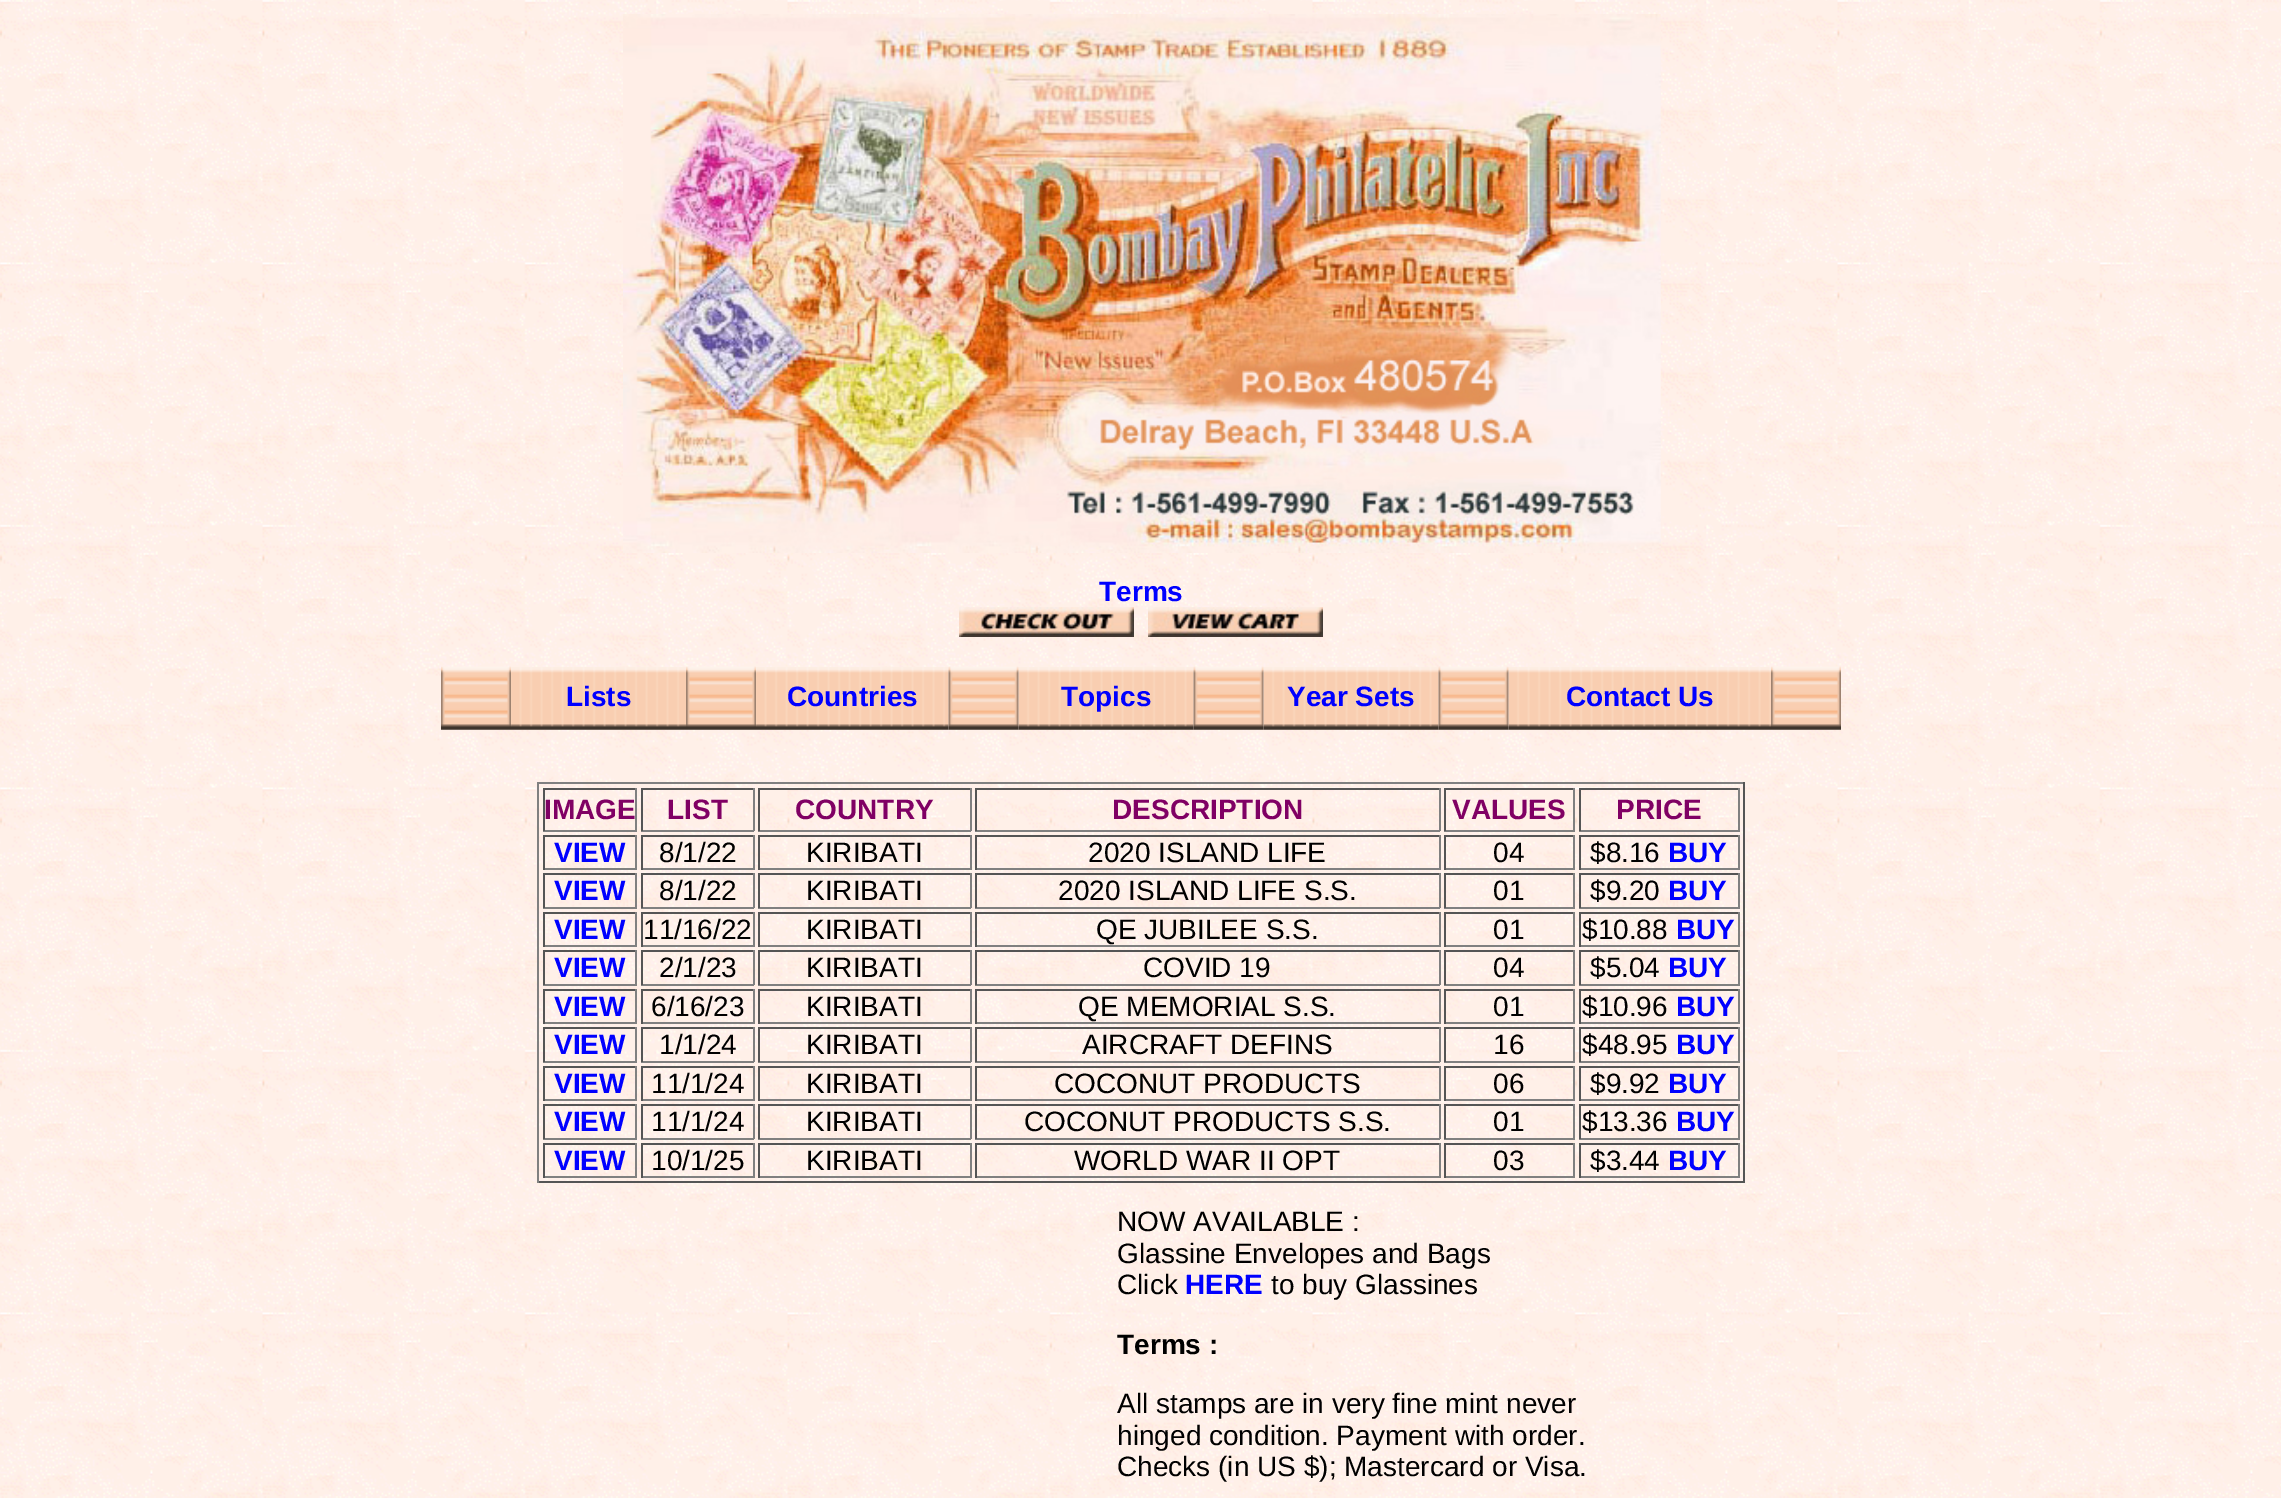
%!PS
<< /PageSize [2281 1498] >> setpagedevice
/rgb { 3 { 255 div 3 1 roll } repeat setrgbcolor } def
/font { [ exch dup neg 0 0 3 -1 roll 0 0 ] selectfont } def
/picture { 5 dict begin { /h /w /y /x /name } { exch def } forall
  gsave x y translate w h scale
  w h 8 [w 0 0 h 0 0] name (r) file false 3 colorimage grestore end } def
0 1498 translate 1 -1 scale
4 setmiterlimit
255 255 255 rgb
0 0 2281 1498 rectfill
(img/1.rgb) 0 0 2281 1498 picture
(img/2.rgb) 623 14 1038 539 picture
(img/3.rgb) 959 607 175 30 picture
(img/4.rgb) 1148 607 175 30 picture
(img/5.rgb) 441 666 70 64 picture
(img/6.rgb) 511 667 175 63 picture
(img/7.rgb) 686 666 70 64 picture
(img/8.rgb) 756 667 193 63 picture
(img/10.rgb) 1018 667 176 63 picture
(img/9.rgb) 948 666 71 64 picture
(img/12.rgb) 1263 667 176 63 picture
(img/11.rgb) 1193 666 71 64 picture
(img/14.rgb) 1508 667 263 63 picture
(img/13.rgb) 1438 666 71 64 picture
(img/15.rgb) 1771 666 70 64 picture
[
  [537 782 1208 2 128 128 128]
  [1743 782 2 401 85 85 85]
  [537 1181 1208 2 85 85 85]
  [537 782 2 401 128 128 128]
  [543 788 94 2 85 85 85]
  [635 788 2 43 128 128 128]
  [543 830 94 2 128 128 128]
  [543 788 2 43 85 85 85]
  [641 788 113 2 85 85 85]
  [753 788 2 43 128 128 128]
  [641 830 113 2 128 128 128]
  [641 788 2 43 85 85 85]
  [758 788 213 2 85 85 85]
  [970 788 2 43 128 128 128]
  [758 830 213 2 128 128 128]
  [758 788 2 43 85 85 85]
  [975 788 465 2 85 85 85]
  [1439 788 2 43 128 128 128]
  [975 830 465 2 128 128 128]
  [975 788 2 43 85 85 85]
  [1444 788 131 2 85 85 85]
  [1573 788 2 43 128 128 128]
  [1444 830 131 2 128 128 128]
  [1444 788 2 43 85 85 85]
  [1579 788 161 2 85 85 85]
  [1738 788 2 43 128 128 128]
  [1579 830 161 2 128 128 128]
  [1579 788 2 43 85 85 85]
  [543 835 94 2 85 85 85]
  [635 835 2 35 128 128 128]
  [543 868 94 2 128 128 128]
  [543 835 2 35 85 85 85]
  [641 835 113 2 85 85 85]
  [753 835 2 35 128 128 128]
  [641 868 113 2 128 128 128]
  [641 835 2 35 85 85 85]
  [758 835 213 2 85 85 85]
  [970 835 2 35 128 128 128]
  [758 868 213 2 128 128 128]
  [758 835 2 35 85 85 85]
  [975 835 465 2 85 85 85]
  [1439 835 2 35 128 128 128]
  [975 868 465 2 128 128 128]
  [975 835 2 35 85 85 85]
  [1444 835 131 2 85 85 85]
  [1573 835 2 35 128 128 128]
  [1444 868 131 2 128 128 128]
  [1444 835 2 35 85 85 85]
  [1579 835 161 2 85 85 85]
  [1738 835 2 35 128 128 128]
  [1579 868 161 2 128 128 128]
  [1579 835 2 35 85 85 85]
  [543 873 94 2 85 85 85]
  [635 873 2 35 128 128 128]
  [543 907 94 2 128 128 128]
  [543 873 2 35 85 85 85]
  [641 873 113 2 85 85 85]
  [753 873 2 35 128 128 128]
  [641 907 113 2 128 128 128]
  [641 873 2 35 85 85 85]
  [758 873 213 2 85 85 85]
  [970 873 2 35 128 128 128]
  [758 907 213 2 128 128 128]
  [758 873 2 35 85 85 85]
  [975 873 465 2 85 85 85]
  [1439 873 2 35 128 128 128]
  [975 907 465 2 128 128 128]
  [975 873 2 35 85 85 85]
  [1444 873 131 2 85 85 85]
  [1573 873 2 35 128 128 128]
  [1444 907 131 2 128 128 128]
  [1444 873 2 35 85 85 85]
  [1579 873 161 2 85 85 85]
  [1738 873 2 35 128 128 128]
  [1579 907 161 2 128 128 128]
  [1579 873 2 35 85 85 85]
  [543 912 94 2 85 85 85]
  [635 912 2 35 128 128 128]
  [543 945 94 2 128 128 128]
  [543 912 2 35 85 85 85]
  [641 912 113 2 85 85 85]
  [753 912 2 35 128 128 128]
  [641 945 113 2 128 128 128]
  [641 912 2 35 85 85 85]
  [758 912 213 2 85 85 85]
  [970 912 2 35 128 128 128]
  [758 945 213 2 128 128 128]
  [758 912 2 35 85 85 85]
  [975 912 465 2 85 85 85]
  [1439 912 2 35 128 128 128]
  [975 945 465 2 128 128 128]
  [975 912 2 35 85 85 85]
  [1444 912 131 2 85 85 85]
  [1573 912 2 35 128 128 128]
  [1444 945 131 2 128 128 128]
  [1444 912 2 35 85 85 85]
  [1579 912 161 2 85 85 85]
  [1738 912 2 35 128 128 128]
  [1579 945 161 2 128 128 128]
  [1579 912 2 35 85 85 85]
  [543 950 94 2 85 85 85]
  [635 950 2 35 128 128 128]
  [543 984 94 2 128 128 128]
  [543 950 2 35 85 85 85]
  [641 950 113 2 85 85 85]
  [753 950 2 35 128 128 128]
  [641 984 113 2 128 128 128]
  [641 950 2 35 85 85 85]
  [758 950 213 2 85 85 85]
  [970 950 2 35 128 128 128]
  [758 984 213 2 128 128 128]
  [758 950 2 35 85 85 85]
  [975 950 465 2 85 85 85]
  [1439 950 2 35 128 128 128]
  [975 984 465 2 128 128 128]
  [975 950 2 35 85 85 85]
  [1444 950 131 2 85 85 85]
  [1573 950 2 35 128 128 128]
  [1444 984 131 2 128 128 128]
  [1444 950 2 35 85 85 85]
  [1579 950 161 2 85 85 85]
  [1738 950 2 35 128 128 128]
  [1579 984 161 2 128 128 128]
  [1579 950 2 35 85 85 85]
  [543 989 94 2 85 85 85]
  [635 989 2 35 128 128 128]
  [543 1022 94 2 128 128 128]
  [543 989 2 35 85 85 85]
  [641 989 113 2 85 85 85]
  [753 989 2 35 128 128 128]
  [641 1022 113 2 128 128 128]
  [641 989 2 35 85 85 85]
  [758 989 213 2 85 85 85]
  [970 989 2 35 128 128 128]
  [758 1022 213 2 128 128 128]
  [758 989 2 35 85 85 85]
  [975 989 465 2 85 85 85]
  [1439 989 2 35 128 128 128]
  [975 1022 465 2 128 128 128]
  [975 989 2 35 85 85 85]
  [1444 989 131 2 85 85 85]
  [1573 989 2 35 128 128 128]
  [1444 1022 131 2 128 128 128]
  [1444 989 2 35 85 85 85]
  [1579 989 161 2 85 85 85]
  [1738 989 2 35 128 128 128]
  [1579 1022 161 2 128 128 128]
  [1579 989 2 35 85 85 85]
  [543 1027 94 2 85 85 85]
  [635 1027 2 35 128 128 128]
  [543 1061 94 2 128 128 128]
  [543 1027 2 35 85 85 85]
  [641 1027 113 2 85 85 85]
  [753 1027 2 35 128 128 128]
  [641 1061 113 2 128 128 128]
  [641 1027 2 35 85 85 85]
  [758 1027 213 2 85 85 85]
  [970 1027 2 35 128 128 128]
  [758 1061 213 2 128 128 128]
  [758 1027 2 35 85 85 85]
  [975 1027 465 2 85 85 85]
  [1439 1027 2 35 128 128 128]
  [975 1061 465 2 128 128 128]
  [975 1027 2 35 85 85 85]
  [1444 1027 131 2 85 85 85]
  [1573 1027 2 35 128 128 128]
  [1444 1061 131 2 128 128 128]
  [1444 1027 2 35 85 85 85]
  [1579 1027 161 2 85 85 85]
  [1738 1027 2 35 128 128 128]
  [1579 1061 161 2 128 128 128]
  [1579 1027 2 35 85 85 85]
  [543 1066 94 2 85 85 85]
  [635 1066 2 35 128 128 128]
  [543 1099 94 2 128 128 128]
  [543 1066 2 35 85 85 85]
  [641 1066 113 2 85 85 85]
  [753 1066 2 35 128 128 128]
  [641 1099 113 2 128 128 128]
  [641 1066 2 35 85 85 85]
  [758 1066 213 2 85 85 85]
  [970 1066 2 35 128 128 128]
  [758 1099 213 2 128 128 128]
  [758 1066 2 35 85 85 85]
  [975 1066 465 2 85 85 85]
  [1439 1066 2 35 128 128 128]
  [975 1099 465 2 128 128 128]
  [975 1066 2 35 85 85 85]
  [1444 1066 131 2 85 85 85]
  [1573 1066 2 35 128 128 128]
  [1444 1099 131 2 128 128 128]
  [1444 1066 2 35 85 85 85]
  [1579 1066 161 2 85 85 85]
  [1738 1066 2 35 128 128 128]
  [1579 1099 161 2 128 128 128]
  [1579 1066 2 35 85 85 85]
  [543 1104 94 2 85 85 85]
  [635 1104 2 35 128 128 128]
  [543 1138 94 2 128 128 128]
  [543 1104 2 35 85 85 85]
  [641 1104 113 2 85 85 85]
  [753 1104 2 35 128 128 128]
  [641 1138 113 2 128 128 128]
  [641 1104 2 35 85 85 85]
  [758 1104 213 2 85 85 85]
  [970 1104 2 35 128 128 128]
  [758 1138 213 2 128 128 128]
  [758 1104 2 35 85 85 85]
  [975 1104 465 2 85 85 85]
  [1439 1104 2 35 128 128 128]
  [975 1138 465 2 128 128 128]
  [975 1104 2 35 85 85 85]
  [1444 1104 131 2 85 85 85]
  [1573 1104 2 35 128 128 128]
  [1444 1138 131 2 128 128 128]
  [1444 1104 2 35 85 85 85]
  [1579 1104 161 2 85 85 85]
  [1738 1104 2 35 128 128 128]
  [1579 1138 161 2 128 128 128]
  [1579 1104 2 35 85 85 85]
  [543 1143 94 2 85 85 85]
  [635 1143 2 35 128 128 128]
  [543 1176 94 2 128 128 128]
  [543 1143 2 35 85 85 85]
  [641 1143 113 2 85 85 85]
  [753 1143 2 35 128 128 128]
  [641 1176 113 2 128 128 128]
  [641 1143 2 35 85 85 85]
  [758 1143 213 2 85 85 85]
  [970 1143 2 35 128 128 128]
  [758 1176 213 2 128 128 128]
  [758 1143 2 35 85 85 85]
  [975 1143 465 2 85 85 85]
  [1439 1143 2 35 128 128 128]
  [975 1176 465 2 128 128 128]
  [975 1143 2 35 85 85 85]
  [1444 1143 131 2 85 85 85]
  [1573 1143 2 35 128 128 128]
  [1444 1176 131 2 128 128 128]
  [1444 1143 2 35 85 85 85]
  [1579 1143 161 2 85 85 85]
  [1738 1143 2 35 128 128 128]
  [1579 1176 161 2 128 128 128]
  [1579 1143 2 35 85 85 85]
] { aload pop rgb rectfill } forall
/LiberationSans-Bold 28 font
0 0 255 rgb
[
  [(Terms) 1099 601]
  [(Lists) 566 706]
  [(Countries) 787 706]
  [(Topics) 1061 706]
  [(Year Sets) 1287 706]
  [(Contact Us) 1566 706]
] { aload pop moveto show } forall
128 0 100 rgb
[
  [(IMAGE) 544 819]
  [(LIST) 667 819]
  [(COUNTRY) 795 819]
  [(DESCRIPTION) 1112 819]
  [(VALUES) 1452 819]
  [(PRICE) 1616 819]
] { aload pop moveto show } forall
0 0 255 rgb
554 862 moveto (VIEW) show
/LiberationSans-Regular 28 font
0 0 0 rgb
[
  [(8/1/22) 659 862]
  [(KIRIBATI) 806 862]
  [(2020 ISLAND LIFE) 1088 862]
  [(04) 1493 862]
  [($8.16) 1590 862]
] { aload pop moveto show } forall
/LiberationSans-Bold 28 font
0 0 255 rgb
1668 862 moveto (BUY) show
554 900 moveto (VIEW) show
/LiberationSans-Regular 28 font
0 0 0 rgb
[
  [(8/1/22) 659 900]
  [(KIRIBATI) 806 900]
  [(2020 ISLAND LIFE S.S.) 1058 900]
  [(01) 1493 900]
  [($9.20) 1590 900]
] { aload pop moveto show } forall
/LiberationSans-Bold 28 font
0 0 255 rgb
1668 900 moveto (BUY) show
554 939 moveto (VIEW) show
/LiberationSans-Regular 28 font
0 0 0 rgb
[
  [(11/16/22) 643 939]
  [(KIRIBATI) 806 939]
  [(QE JUBILEE S.S.) 1096 939]
  [(01) 1493 939]
  [($10.88) 1582 939]
] { aload pop moveto show } forall
/LiberationSans-Bold 28 font
0 0 255 rgb
1676 939 moveto (BUY) show
554 977 moveto (VIEW) show
/LiberationSans-Regular 28 font
0 0 0 rgb
[
  [(2/1/23) 659 977]
  [(KIRIBATI) 806 977]
  [(COVID 19) 1143 977]
  [(04) 1493 977]
  [($5.04) 1590 977]
] { aload pop moveto show } forall
/LiberationSans-Bold 28 font
0 0 255 rgb
1668 977 moveto (BUY) show
554 1016 moveto (VIEW) show
/LiberationSans-Regular 28 font
0 0 0 rgb
[
  [(6/16/23) 651 1016]
  [(KIRIBATI) 806 1016]
  [(QE MEMORIAL S.S.) 1078 1016]
  [(01) 1493 1016]
  [($10.96) 1582 1016]
] { aload pop moveto show } forall
/LiberationSans-Bold 28 font
0 0 255 rgb
1676 1016 moveto (BUY) show
554 1054 moveto (VIEW) show
/LiberationSans-Regular 28 font
0 0 0 rgb
[
  [(1/1/24) 659 1054]
  [(KIRIBATI) 806 1054]
  [(AIRCRAFT DEFINS) 1082 1054]
  [(16) 1493 1054]
  [($48.95) 1582 1054]
] { aload pop moveto show } forall
/LiberationSans-Bold 28 font
0 0 255 rgb
1676 1054 moveto (BUY) show
554 1093 moveto (VIEW) show
/LiberationSans-Regular 28 font
0 0 0 rgb
[
  [(11/1/24) 651 1093]
  [(KIRIBATI) 806 1093]
  [(COCONUT PRODUCTS) 1054 1093]
  [(06) 1493 1093]
  [($9.92) 1590 1093]
] { aload pop moveto show } forall
/LiberationSans-Bold 28 font
0 0 255 rgb
1668 1093 moveto (BUY) show
554 1131 moveto (VIEW) show
/LiberationSans-Regular 28 font
0 0 0 rgb
[
  [(11/1/24) 651 1131]
  [(KIRIBATI) 806 1131]
  [(COCONUT PRODUCTS S.S.) 1024 1131]
  [(01) 1493 1131]
  [($13.36) 1582 1131]
] { aload pop moveto show } forall
/LiberationSans-Bold 28 font
0 0 255 rgb
1676 1131 moveto (BUY) show
554 1170 moveto (VIEW) show
/LiberationSans-Regular 28 font
0 0 0 rgb
[
  [(10/1/25) 651 1170]
  [(KIRIBATI) 806 1170]
  [(WORLD WAR II OPT) 1074 1170]
  [(03) 1493 1170]
  [($3.44) 1590 1170]
] { aload pop moveto show } forall
/LiberationSans-Bold 28 font
0 0 255 rgb
1668 1170 moveto (BUY) show
/LiberationSans-Regular 28 font
0 0 0 rgb
[
  [(NOW AVAILABLE :) 1117 1231]
  [(Glassine Envelopes and Bags) 1117 1263]
  [(Click) 1117 1294]
] { aload pop moveto show } forall
/LiberationSans-Bold 28 font
0 0 255 rgb
1185 1294 moveto (HERE) show
/LiberationSans-Regular 28 font
0 0 0 rgb
1271 1294 moveto (to buy Glassines) show
/LiberationSans-Bold 28 font
1117 1354 moveto (Terms :) show
/LiberationSans-Regular 28 font
[
  [(All stamps are in very fine mint never) 1117 1413]
  [(hinged condition. Payment with order.) 1117 1445]
  [(Checks \(in US $\); Mastercard or Visa.) 1117 1476]
] { aload pop moveto show } forall
showpage
